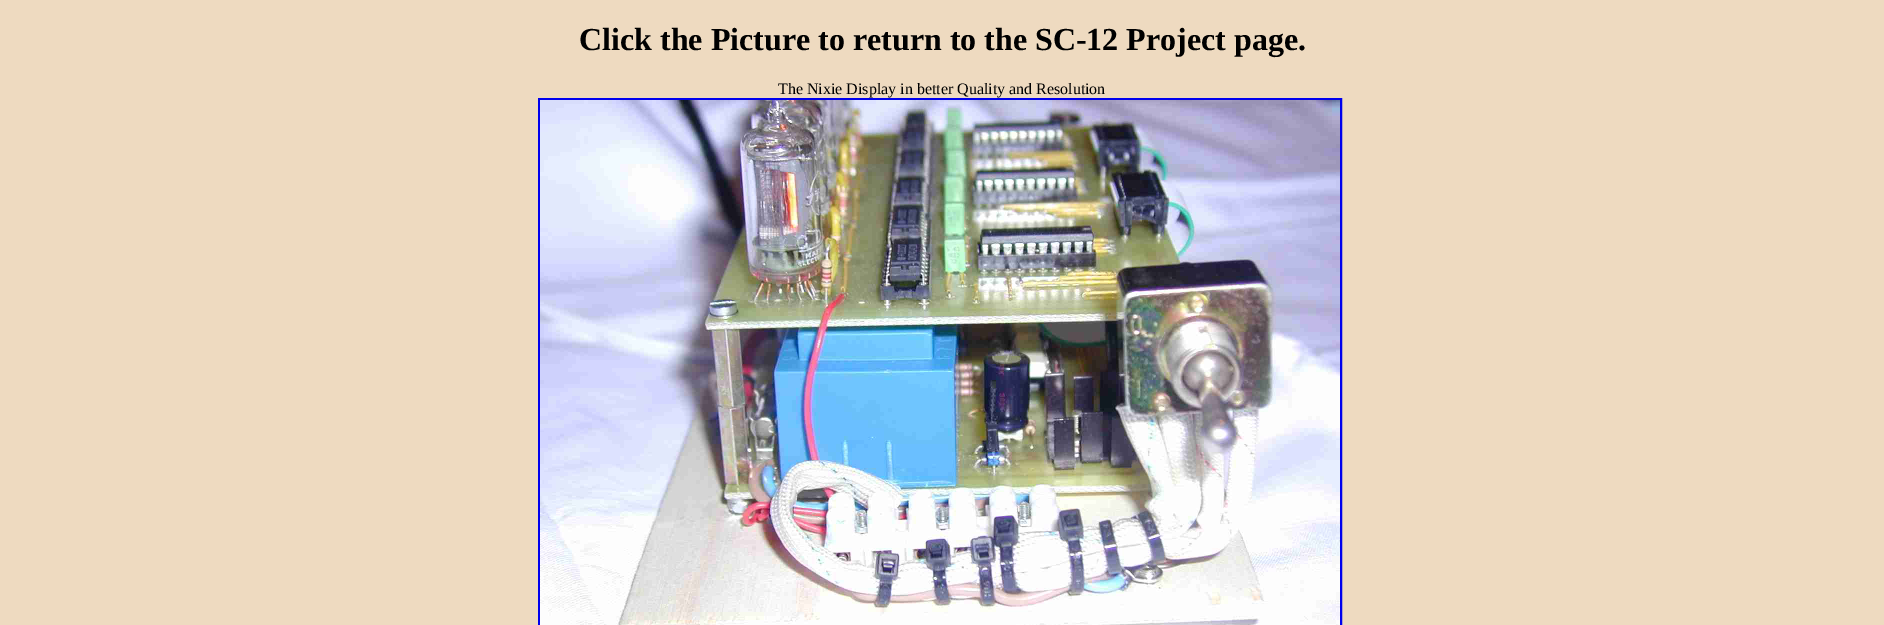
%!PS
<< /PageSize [1884 625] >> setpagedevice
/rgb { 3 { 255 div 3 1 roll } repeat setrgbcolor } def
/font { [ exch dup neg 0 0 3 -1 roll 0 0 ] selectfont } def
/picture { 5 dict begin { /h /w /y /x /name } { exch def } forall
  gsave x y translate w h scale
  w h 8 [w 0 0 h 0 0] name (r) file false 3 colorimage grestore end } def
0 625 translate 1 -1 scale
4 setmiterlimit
238 218 192 rgb
0 0 1884 625 rectfill
0 0 238 rgb
2 setlinewidth
539 99 802 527 rectstroke
(img/1.rgb) 540 100 800 525 picture
/LiberationSerif-Bold 32 font
0 0 0 rgb
579 50 moveto (Click the Picture to return to the SC-12 Project page.) show
/LiberationSerif-Regular 16 font
778 94 moveto (The Nixie Display in better Quality and Resolution) show
showpage
